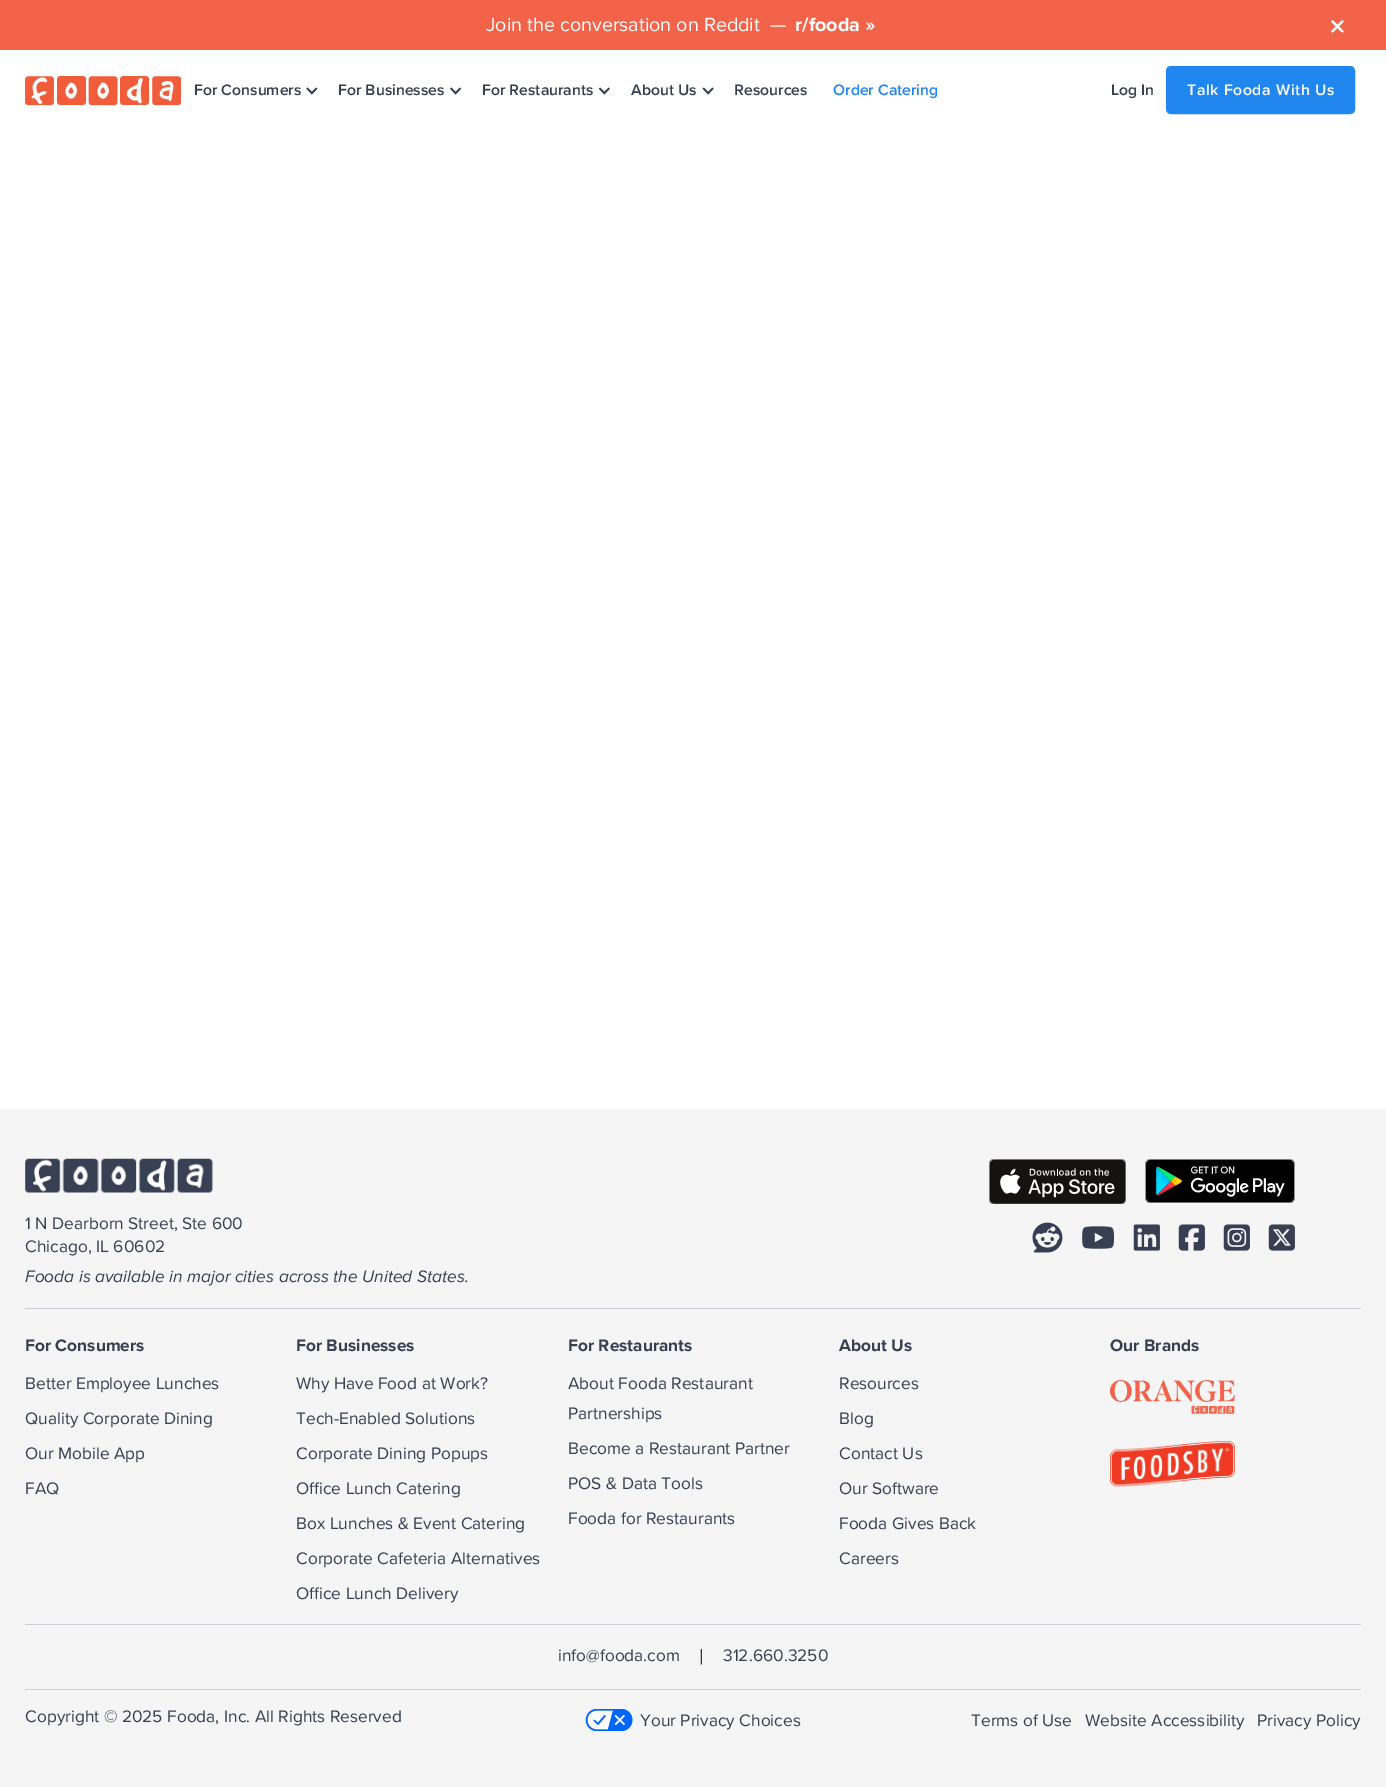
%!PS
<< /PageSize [1386 1787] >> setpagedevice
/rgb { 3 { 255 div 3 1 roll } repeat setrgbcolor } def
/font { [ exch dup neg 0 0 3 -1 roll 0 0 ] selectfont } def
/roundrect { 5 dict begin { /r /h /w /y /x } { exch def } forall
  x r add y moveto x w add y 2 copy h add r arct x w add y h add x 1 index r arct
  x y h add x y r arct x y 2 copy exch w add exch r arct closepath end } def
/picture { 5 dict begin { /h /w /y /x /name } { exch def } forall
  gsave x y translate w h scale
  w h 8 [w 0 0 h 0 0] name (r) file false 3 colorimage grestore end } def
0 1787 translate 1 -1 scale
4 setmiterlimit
255 255 255 rgb
0 0 1386 1787 rectfill
243 99 74 rgb
0 0 1386 50 rectfill
(img/1.rgb) 1331 20 13 13 picture
(img/2.rgb) 25 76 156 30 picture
(img/3.rgb) 306 87 12 8 picture
(img/4.rgb) 450 87 12 8 picture
(img/5.rgb) 598 87 12 8 picture
(img/6.rgb) 702 87 12 8 picture
32 134 240 rgb
1167.5 67.5 186 45 3.5 roundrect gsave fill grestore
3 setlinewidth
stroke
245 245 246 rgb
0 1109 1386 678 rectfill
(img/7.rgb) 25 1158 188 35 picture
(img/8.rgb) 989 1159 137 45 picture
(img/9.rgb) 1145 1159 150 44 picture
(img/10.rgb) 1032 1222 31 31 picture
(img/11.rgb) 1082 1226 33 23 picture
(img/12.rgb) 1133 1224 27 27 picture
(img/13.rgb) 1178 1224 27 27 picture
(img/14.rgb) 1223 1224 27 27 picture
(img/15.rgb) 1268 1224 27 27 picture
203 205 213 rgb
25 1308 1336 1 rectfill
(img/16.rgb) 1110 1380 125 34 picture
(img/17.rgb) 1110 1441 125 46 picture
25 1624 1336 1 rectfill
25 1689 1336 1 rectfill
(img/18.rgb) 585 1709 48 22 picture
/ProximaNova-Regular 19.75 font
255 255 255 rgb
486 31 moveto (Join the conversation on Reddit  —) show
/ProximaNova-Bold 19.75 font
795 31 moveto (r/fooda ») show
/ProximaNova-SemiBold 15.75 font
55 64 83 rgb
[
  [(For Consumers) 194 95]
  [(For Businesses) 338 95]
  [(For Restaurants) 482 95]
  [(About Us) 631 95]
  [(Resources) 734 95]
] { aload pop moveto show } forall
32 134 240 rgb
833 95 moveto (Order Catering) show
55 64 83 rgb
1111 95 moveto (Log In) show
255 255 255 rgb
1187 95 moveto 0.6 0 (Talk Fooda With Us) ashow
/ProximaNova-Regular 17.3 font
55 64 83 rgb
25 1229 moveto (1 N Dearborn Street, Ste 600) show
25 1252 moveto (Chicago, IL 60602) show
/ProximaNova-Italic 17.3 font
25 1282 moveto (Fooda is available in major cities across the United States.) show
/ProximaNova-Bold 17.3 font
25 1351 moveto (For Consumers) show
/ProximaNova-Regular 17.3 font
[
  [(Better Employee Lunches) 25 1389]
  [(Quality Corporate Dining) 25 1424]
  [(Our Mobile App) 25 1459]
  [(FAQ) 25 1494]
] { aload pop moveto show } forall
/ProximaNova-Bold 17.3 font
296 1351 moveto (For Businesses) show
/ProximaNova-Regular 17.3 font
[
  [(Why Have Food at Work?) 296 1389]
  [(Tech-Enabled Solutions) 296 1424]
  [(Corporate Dining Popups) 296 1459]
  [(Office Lunch Catering) 296 1494]
  [(Box Lunches & Event Catering) 296 1529]
  [(Corporate Cafeteria Alternatives) 296 1564]
  [(Office Lunch Delivery) 296 1599]
] { aload pop moveto show } forall
/ProximaNova-Bold 17.3 font
568 1351 moveto (For Restaurants) show
/ProximaNova-Regular 17.3 font
[
  [(About Fooda Restaurant) 568 1389]
  [(Partnerships) 568 1419]
  [(Become a Restaurant Partner) 568 1454]
  [(POS & Data Tools) 568 1489]
  [(Fooda for Restaurants) 568 1524]
] { aload pop moveto show } forall
/ProximaNova-Bold 17.3 font
839 1351 moveto (About Us) show
/ProximaNova-Regular 17.3 font
[
  [(Resources) 839 1389]
  [(Blog) 839 1424]
  [(Contact Us) 839 1459]
  [(Our Software) 839 1494]
  [(Fooda Gives Back) 839 1529]
  [(Careers) 839 1564]
] { aload pop moveto show } forall
/ProximaNova-Bold 17.3 font
1110 1351 moveto (Our Brands) show
/ProximaNova-Regular 17.3 font
558 1661 moveto (info@fooda.com) show
/ProximaNova-Regular 22 font
51 51 51 rgb
699 1664 moveto (|) show
/ProximaNova-Regular 17.3 font
55 64 83 rgb
[
  [(312.660.3250) 723 1661]
  [(Copyright © 2025 Fooda, Inc. All Rights Reserved) 25 1722]
  [(Your Privacy Choices) 640 1726]
  [(Terms of Use) 971 1726]
  [(Website Accessibility) 1085 1726]
  [(Privacy Policy) 1257 1726]
] { aload pop moveto show } forall
showpage
